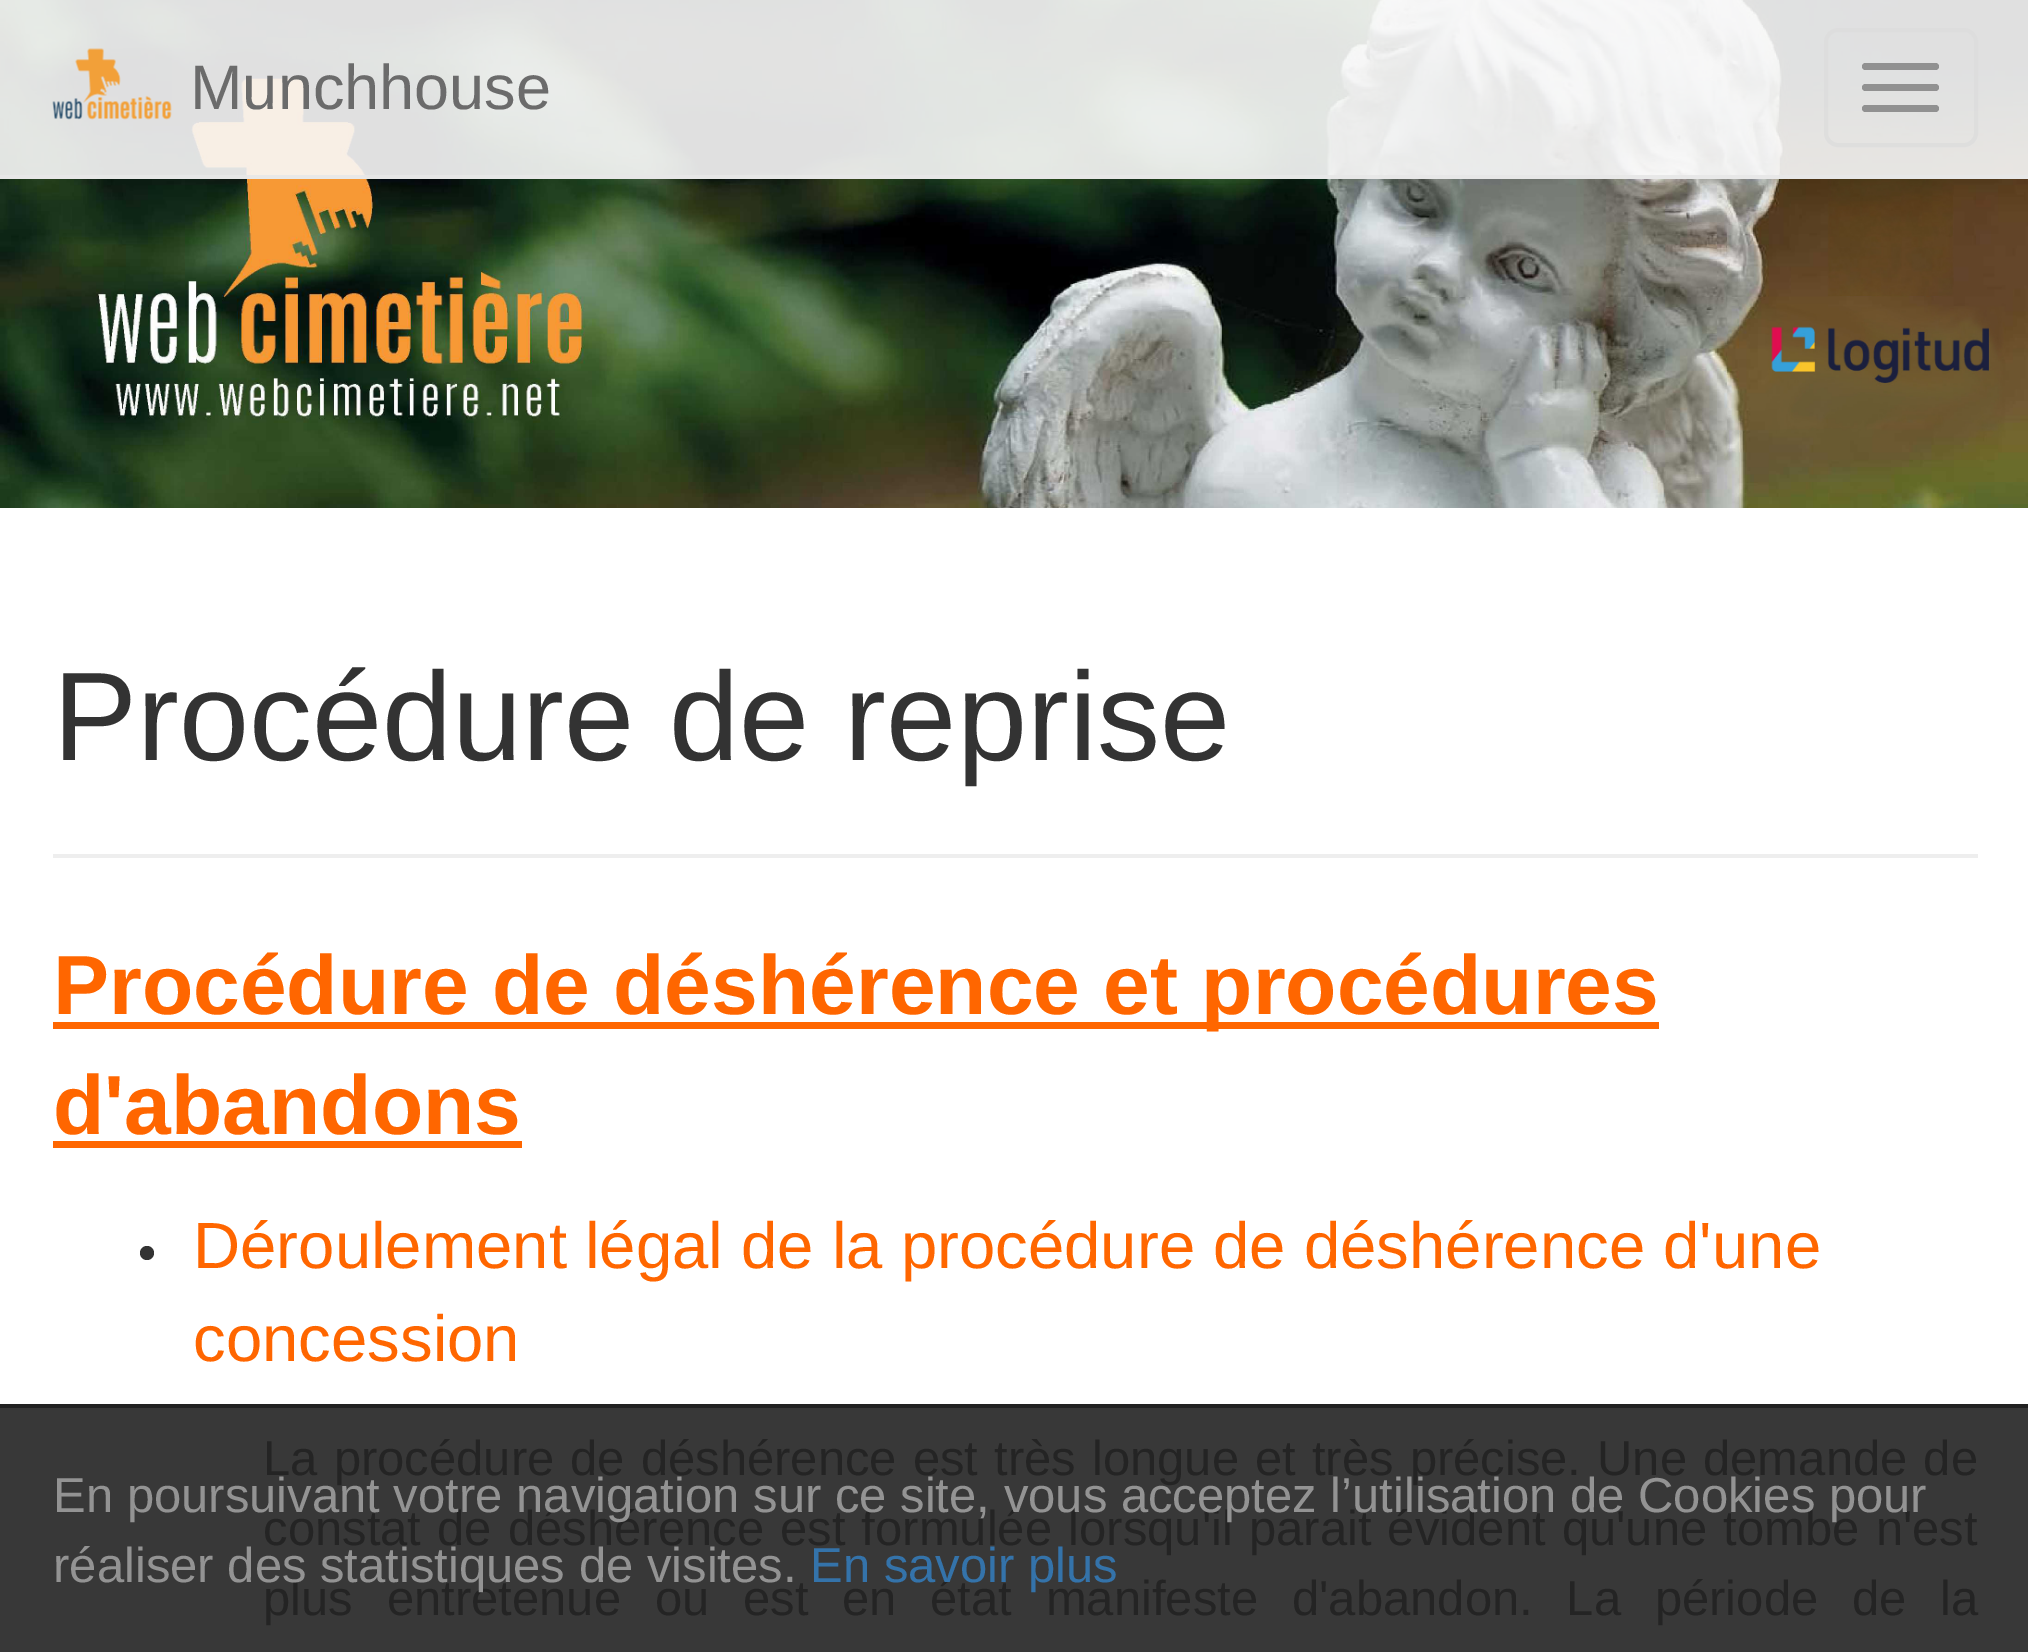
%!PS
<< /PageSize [2028 1652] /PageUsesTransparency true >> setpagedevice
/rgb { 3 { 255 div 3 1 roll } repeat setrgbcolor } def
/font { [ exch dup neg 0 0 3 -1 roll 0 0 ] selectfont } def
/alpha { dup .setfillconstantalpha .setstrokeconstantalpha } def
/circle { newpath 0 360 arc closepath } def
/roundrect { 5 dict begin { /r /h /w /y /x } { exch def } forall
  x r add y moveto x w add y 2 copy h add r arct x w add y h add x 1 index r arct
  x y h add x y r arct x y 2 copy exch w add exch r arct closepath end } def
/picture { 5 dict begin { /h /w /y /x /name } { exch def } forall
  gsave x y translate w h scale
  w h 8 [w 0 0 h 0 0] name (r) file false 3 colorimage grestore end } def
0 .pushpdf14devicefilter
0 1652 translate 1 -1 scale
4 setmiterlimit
255 255 255 rgb
0 0 2028 1652 rectfill
(img/1.rgb) 0 0 2028 508 picture
[
  [0 1408 2028 244 56 56 56]
] { aload pop rgb rectfill } forall
0.9 alpha
[
  [0 0 2028 179 248 248 248]
  [0 175 2028 4 231 231 231]
] { aload pop rgb rectfill } forall
1 alpha
(img/2.rgb) 52 48 120 72 picture
0.9 alpha
221 221 221 rgb
4 setlinewidth
1826 30 150 115 12 roundrect stroke
1 alpha
145 145 145 rgb
1862 63 77 7 3.5 roundrect fill
1862 84 77 7 3.5 roundrect fill
1862 105 77 7 3.5 roundrect fill
[
  [53 854 1925 4 238 238 238]
  [53 1022 1606 7 255 102 0]
  [53 1141 469 7 255 102 0]
] { aload pop rgb rectfill } forall
51 51 51 rgb
147 1253 7 circle fill
33 33 33 rgb
0 1404 2028 4 rectfill
/LiberationSans-Regular 63 font
107 107 107 rgb
190 109 moveto (Munchhouse) show
/LiberationSans-Regular 126 font
51 51 51 rgb
53 760 moveto (Procédure de reprise) show
/LiberationSans-Bold 84 font
255 102 0 rgb
53 1014 moveto (Procédure de déshérence et procédures) show
53 1134 moveto (d'abandons) show
/LiberationSans-Regular 65.3 font
193 1268 moveto (Déroulement légal de la procédure de déshérence d'une) show
193 1361 moveto (concession) show
/LiberationSans-Regular 49 font
36 36 36 rgb
263 1475 moveto 2.4 0 32 (La procédure de déshérence est très longue et très précise. Une demande de) widthshow
263 1545 moveto 2.5 0 32 (constat de déshérence est formulée lorsqu'il parait évident qu'une tombe n'est) widthshow
263 1615 moveto 20.1 0 32 (plus entretenue ou est en état manifeste d'abandon. La période de la) widthshow
147 147 147 rgb
53 1512 moveto (En poursuivant votre navigation sur ce site, vous acceptez l’utilisation de Cookies pour) show
53 1582 moveto (réaliser des statistiques de visites.) show
52 115 170 rgb
810 1582 moveto (En savoir plus) show
.poppdf14devicefilter showpage
